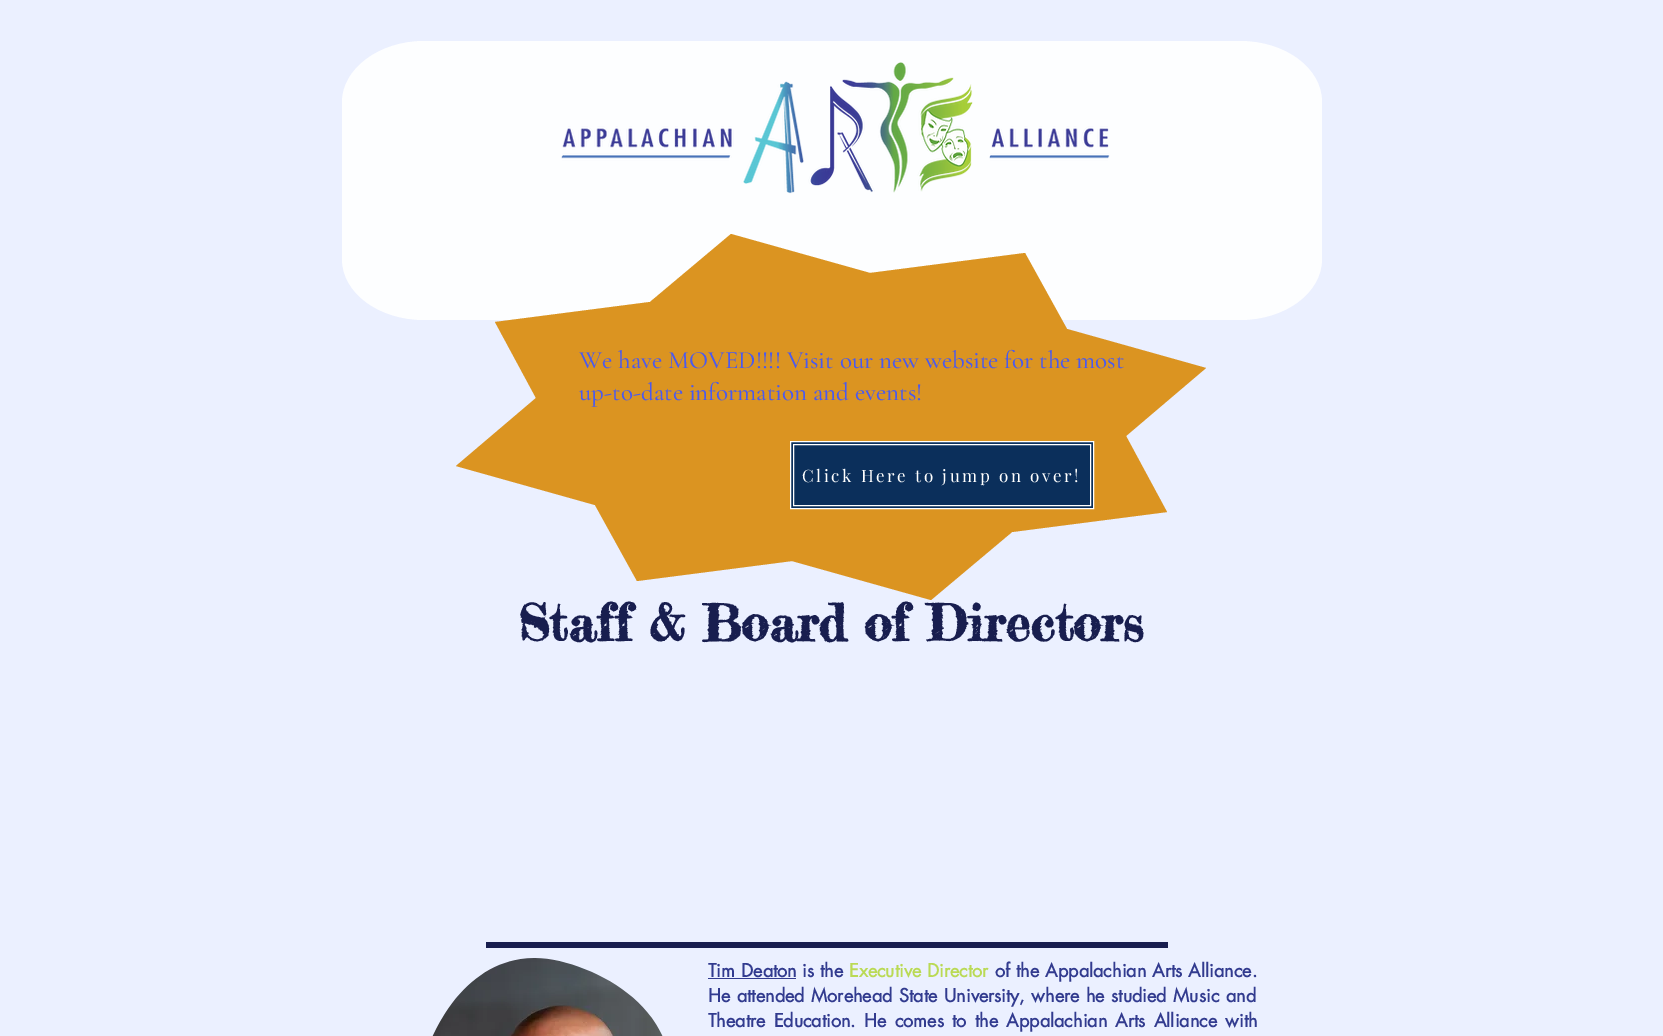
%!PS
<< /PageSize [1663 1036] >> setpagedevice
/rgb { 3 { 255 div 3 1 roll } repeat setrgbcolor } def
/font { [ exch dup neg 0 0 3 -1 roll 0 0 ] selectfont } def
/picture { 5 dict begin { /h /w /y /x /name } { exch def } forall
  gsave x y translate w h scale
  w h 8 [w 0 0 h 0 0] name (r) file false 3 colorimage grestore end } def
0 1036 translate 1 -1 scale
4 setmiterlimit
235 240 255 rgb
0 0 1663 1036 rectfill
253 254 255 rgb
1240 320 moveto 424 320 lineto 379 320 342 293 342 259 curveto 342 102 lineto 342 69 379 41 424 41 curveto 1240 41 lineto 1285 41 1322 68 1322 102 curveto 1322 259 lineto 1322 293 1285 320 1240 320 curveto closepath fill
(img/1.rgb) 561 62 549 132 picture
219 148 33 rgb
1126 436 moveto 1206 368 lineto 1067 329 lineto 1025 253 lineto 870 273 lineto 731 234 lineto 650 302 lineto 495 322 lineto 536 398 lineto 456 466 lineto 595 505 lineto 637 581 lineto 792 561 lineto 931 600 lineto 1012 532 lineto 1167 512 lineto closepath eofill
11 47 91 rgb
790.5 441.5 moveto 1093.5 441.5 lineto 1093.5 508.5 lineto 790.5 508.5 lineto closepath gsave fill grestore
255 255 255 rgb
stroke
793.5 444.5 297 61 rectstroke
24 30 79 rgb
486 942 682 6 rectfill
(img/2.rgb) 432 958 231 78 picture
50 59 143 rgb
708 978 88 1 rectfill
/CormorantGaramond-Medium 25 font
74 90 239 rgb
579 368 moveto (We have MOVED!!!! Visit our new website for the most) show
579 400 moveto (up-to-date information and events!) show
/PlayfairDisplay-Regular 17 font
255 255 255 rgb
802 482 moveto 2.55 0 (Click Here to jump on over!) ashow
/FrederickatheGreat-Bold 50 font
24 30 79 rgb
518 641 moveto (Staff & Board of Directors) show
/futura-Bold 18 font
50 59 143 rgb
708 977 moveto 0.5 0 32 (Tim Deaton) widthshow
802 977 moveto 0.5 0 32 (is the) widthshow
186 218 85 rgb
849 977 moveto (Executive Director) show
50 59 143 rgb
995 977 moveto 0.5 0 32 (of the Appalachian Arts Alliance.) widthshow
708 1002 moveto 1 0 32 (He attended Morehead State University, where he studied Music and) widthshow
708 1027 moveto 2.75 0 32 (Theatre Education. He comes to the Appalachian Arts Alliance with) widthshow
showpage
